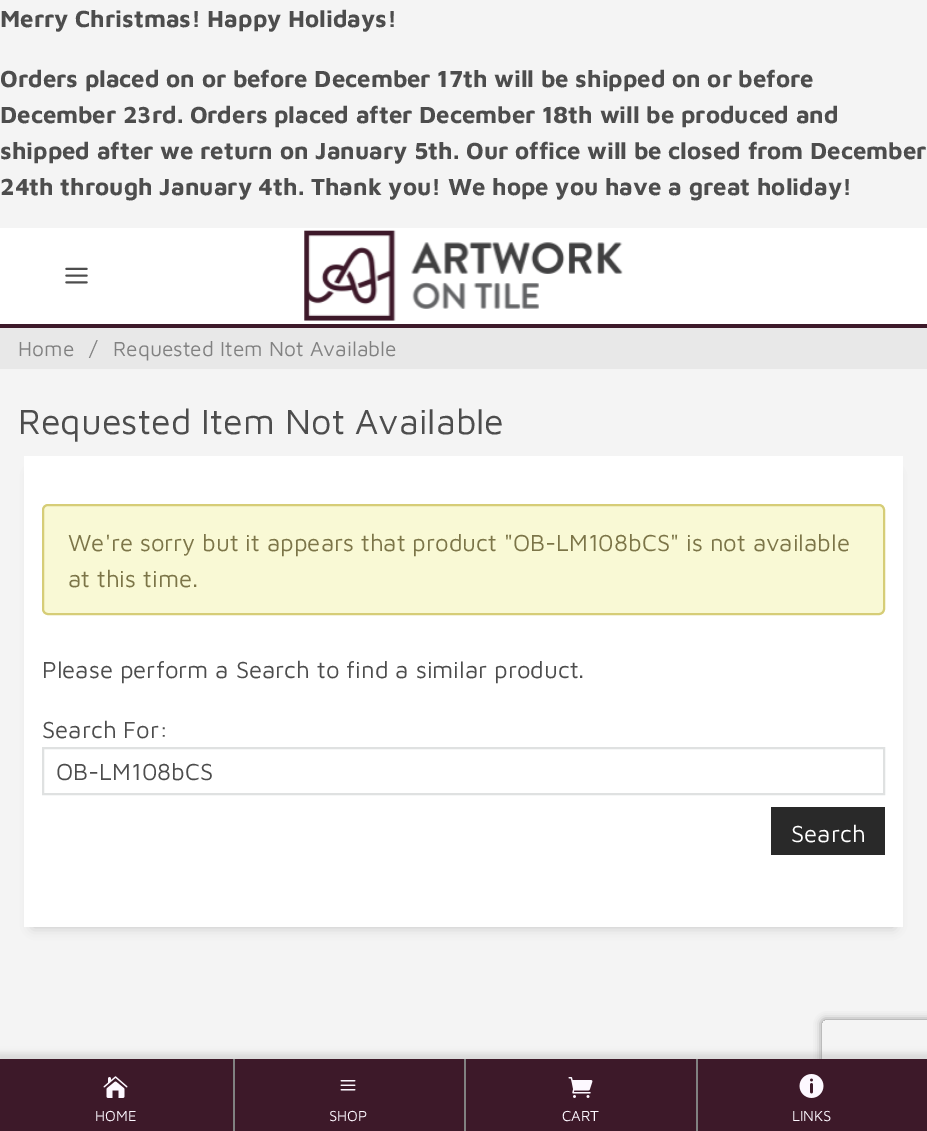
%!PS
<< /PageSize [927 1131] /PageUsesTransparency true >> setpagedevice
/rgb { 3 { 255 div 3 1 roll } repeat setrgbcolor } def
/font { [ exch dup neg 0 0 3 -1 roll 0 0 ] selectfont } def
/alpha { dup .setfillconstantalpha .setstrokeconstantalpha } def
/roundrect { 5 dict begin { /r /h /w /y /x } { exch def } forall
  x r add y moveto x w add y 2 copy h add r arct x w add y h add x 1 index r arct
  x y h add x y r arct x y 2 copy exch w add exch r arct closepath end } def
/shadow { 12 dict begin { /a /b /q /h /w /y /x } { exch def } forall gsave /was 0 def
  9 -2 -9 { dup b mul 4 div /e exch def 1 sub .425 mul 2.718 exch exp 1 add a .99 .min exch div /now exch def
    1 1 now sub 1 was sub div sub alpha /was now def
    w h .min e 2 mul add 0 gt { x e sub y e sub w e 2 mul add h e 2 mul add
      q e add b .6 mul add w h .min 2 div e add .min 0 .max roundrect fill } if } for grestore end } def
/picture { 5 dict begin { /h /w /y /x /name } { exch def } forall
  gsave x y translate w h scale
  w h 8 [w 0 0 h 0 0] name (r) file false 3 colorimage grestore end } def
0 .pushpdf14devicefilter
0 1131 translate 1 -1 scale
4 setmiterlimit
244 244 244 rgb
0 0 927 1131 rectfill
255 255 255 rgb
0 228 927 96 rectfill
(img/1.rgb) 65 267 23 17 picture
(img/2.rgb) 304 230 319 91 picture
61 25 41 rgb
0 324 927 4 rectfill
232 232 232 rgb
0 328 927 41 rectfill
0 0 0 rgb
33 474 861 453 0 6 0.2 shadow
255 255 255 rgb
24 456 879 471 rectfill
249 249 213 rgb
43 505 841 109 5 roundrect gsave fill grestore
214 205 119 rgb
2 setlinewidth
stroke
223 225 225 rgb
43 748 841 46 rectstroke
41 41 41 rgb
771 807 114 48 rectfill
0 0 0 rgb
-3 1053 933 78 0 3 0.1 shadow
gsave
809 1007 moveto 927 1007 lineto 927 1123 lineto 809 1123 lineto closepath 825 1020 moveto 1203 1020 lineto 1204.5 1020 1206 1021.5 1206 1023 curveto 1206 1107 lineto 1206 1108.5 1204.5 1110 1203 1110 curveto 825 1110 lineto 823.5 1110 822 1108.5 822 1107 curveto 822 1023 lineto 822 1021.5 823.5 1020 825 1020 curveto closepath eoclip newpath
128 128 128 rgb
822 1020 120 90 3 4 1 shadow
grestore
61 25 41 rgb
0 1059 927 72 rectfill
(img/3.rgb) 103 1076 25 22 picture
129 129 129 rgb
233 1059 2 72 rectfill
(img/4.rgb) 340 1080 16 11 picture
464 1059 2 72 rectfill
(img/5.rgb) 568 1077 25 21 picture
696 1059 2 72 rectfill
(img/6.rgb) 799 1074 25 24 picture
/MavenPro-Bold 24 font
77 77 77 rgb
[
  [(Merry Christmas! Happy Holidays!) 0 27]
  [(Orders placed on or before December 17th will be shipped on or before) 0 87]
  [(December 23rd. Orders placed after December 18th will be produced and) 0 123]
  [(shipped after we return on January 5th. Our office will be closed from December) 0 159]
  [(24th through January 4th. Thank you! We hope you have a great holiday!) 0 195]
] { aload pop moveto show } forall
/MavenPro-Regular 21 font
129 129 129 rgb
[
  [(Home) 18 356]
  [(/) 89 356]
  [(Requested Item Not Available) 113 356]
] { aload pop moveto show } forall
/MavenPro-Regular 36 font
77 77 77 rgb
18 434 moveto (Requested Item Not Available) show
/MavenPro-Regular 24 font
124 117 72 rgb
68 551 moveto (We're sorry but it appears that product "OB-LM108bCS" is not available) show
68 587 moveto (at this time.) show
77 77 77 rgb
[
  [(Please perform a Search to find a similar product.) 42 678]
  [(Search For:) 42 738]
  [(OB-LM108bCS) 56 780]
] { aload pop moveto show } forall
255 255 255 rgb
791 842 moveto (Search) show
/MavenPro-Regular 15 font
253 248 255 rgb
[
  [(HOME) 95 1121]
  [(SHOP) 329 1121]
  [(CART) 562 1121]
  [(LINKS) 792 1121]
] { aload pop moveto show } forall
.poppdf14devicefilter showpage
